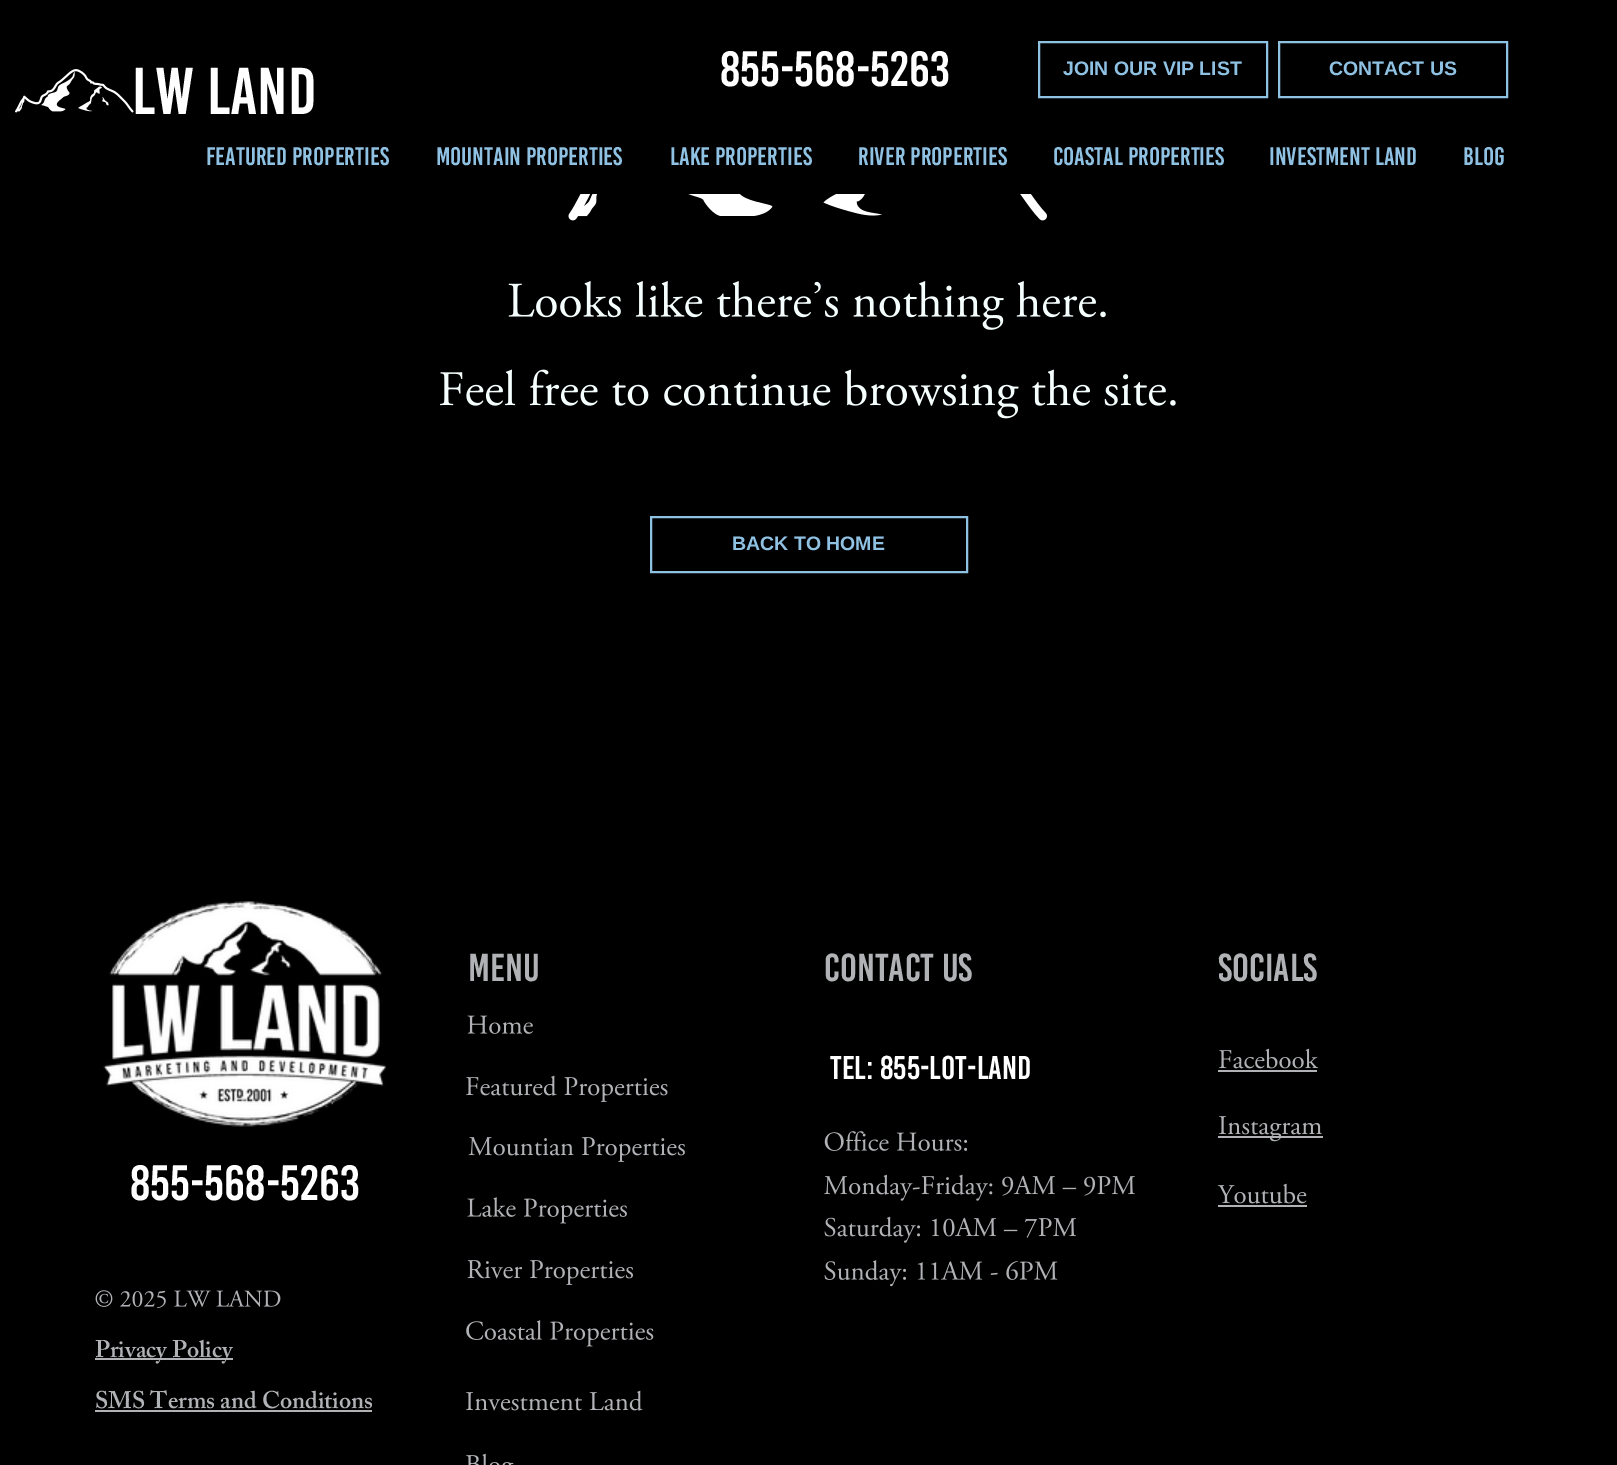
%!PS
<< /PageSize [1617 1465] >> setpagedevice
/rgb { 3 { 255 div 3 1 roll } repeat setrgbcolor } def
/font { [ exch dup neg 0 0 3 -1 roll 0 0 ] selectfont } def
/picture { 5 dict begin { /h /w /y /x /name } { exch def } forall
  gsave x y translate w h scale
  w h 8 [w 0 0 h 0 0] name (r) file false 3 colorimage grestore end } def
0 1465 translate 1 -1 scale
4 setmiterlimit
0 0 0 rgb
0 0 1617 1465 rectfill
143 193 227 rgb
2 setlinewidth
1039 42 228 55 rectstroke
1279 42 228 55 rectstroke
(img/1.rgb) 15 69 119 44 picture
(img/2.rgb) 568 194 479 27 picture
(img/3.rgb) 508 281 598 49 picture
(img/4.rgb) 440 369 736 50 picture
651 517 316 55 rectstroke
(img/5.rgb) 467 1015 66 19 picture
(img/6.rgb) 466 1075 202 27 picture
(img/7.rgb) 468 1137 217 25 picture
(img/8.rgb) 467 1197 160 27 picture
(img/9.rgb) 467 1260 166 25 picture
(img/10.rgb) 466 1320 188 27 picture
(img/11.rgb) 466 1390 177 21 picture
(img/12.rgb) 466 1453 48 12 picture
(img/13.rgb) 824 1131 144 21 picture
(img/14.rgb) 824 1174 311 27 picture
(img/15.rgb) 824 1216 253 27 picture
(img/16.rgb) 824 1260 234 27 picture
(img/17.rgb) 1219 1048 100 21 picture
177 178 182 rgb
1218 1070 99 2 rectfill
1218 1136 105 2 rectfill
(img/18.rgb) 1219 1116 103 26 picture
(img/19.rgb) 1217 1183 90 21 picture
1218 1205 89 2 rectfill
(img/20.rgb) 103 901 283 226 picture
(img/21.rgb) 95 1290 186 19 picture
95 1358 138 2 rectfill
95 1410 277 2 rectfill
/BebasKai-Regular 49.5 font
255 255 255 rgb
720 86 moveto (855-568-5263) show
/LiberationSans-Bold 19.5 font
143 193 227 rgb
1063 75 moveto (JOIN OUR VIP LIST) show
1329 75 moveto (CONTACT US) show
/BebasKai-Regular 25.5 font
[
  [(FEATURED PROPERTIES) 206 165]
  [(MOUNTAIN PROPERTIES) 436 165]
  [(LAKE PROPERTIES) 670 165]
  [(RIVER PROPERTIES) 858 165]
  [(COASTAL PROPERTIES) 1053 165]
  [(INVESTMENT LAND) 1269 165]
  [(BLOG) 1463 165]
] { aload pop moveto show } forall
/BebasKai-Regular 66 font
255 255 255 rgb
132 114 moveto (LW LAND) show
/LiberationSans-Bold 19.5 font
143 193 227 rgb
732 550 moveto (BACK TO HOME) show
/BebasKai-Regular 39 font
177 178 182 rgb
468 981 moveto (Menu) show
824 981 moveto (Contact Us) show
/BebasKai-Regular 33 font
255 255 255 rgb
830 1079 moveto (Tel: 855-LOT-LAND) show
/BebasKai-Regular 39 font
177 178 182 rgb
1218 981 moveto (Socials) show
/BebasKai-Regular 49.5 font
255 255 255 rgb
130 1200 moveto (855-568-5263) show
/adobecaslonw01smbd-SemiBold 24 font
177 178 182 rgb
95 1357 moveto (Privacy Policy) show
95 1408 moveto (SMS Terms and Conditions) show
showpage
